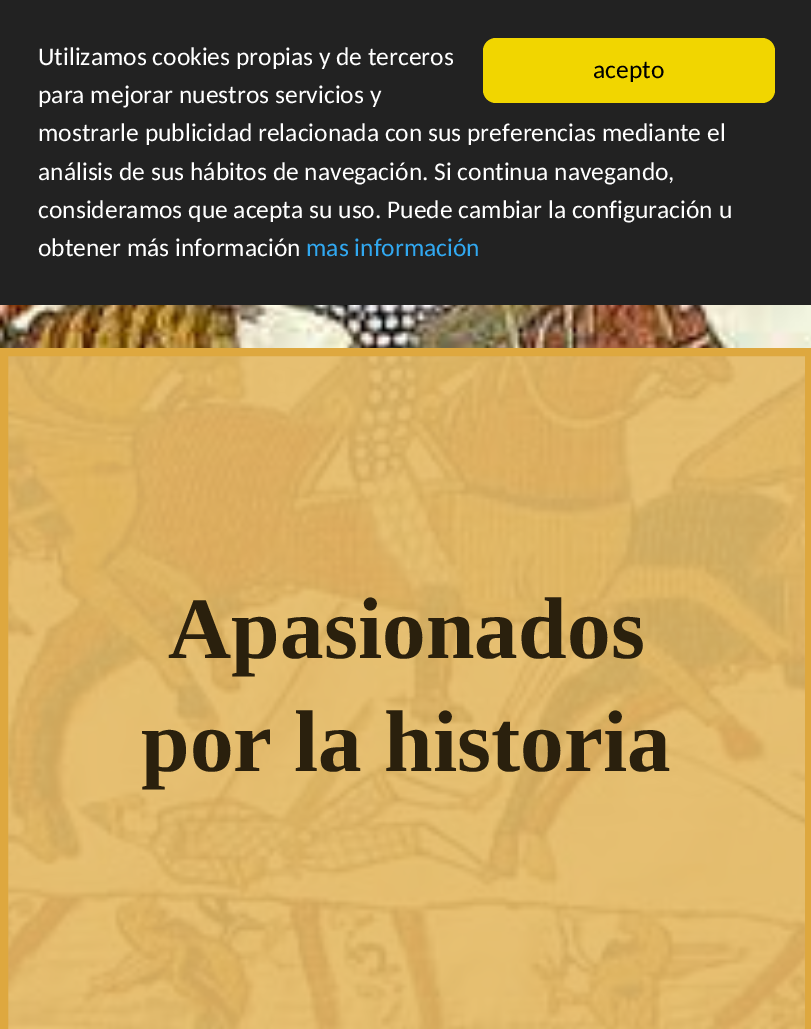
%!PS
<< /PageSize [811 1029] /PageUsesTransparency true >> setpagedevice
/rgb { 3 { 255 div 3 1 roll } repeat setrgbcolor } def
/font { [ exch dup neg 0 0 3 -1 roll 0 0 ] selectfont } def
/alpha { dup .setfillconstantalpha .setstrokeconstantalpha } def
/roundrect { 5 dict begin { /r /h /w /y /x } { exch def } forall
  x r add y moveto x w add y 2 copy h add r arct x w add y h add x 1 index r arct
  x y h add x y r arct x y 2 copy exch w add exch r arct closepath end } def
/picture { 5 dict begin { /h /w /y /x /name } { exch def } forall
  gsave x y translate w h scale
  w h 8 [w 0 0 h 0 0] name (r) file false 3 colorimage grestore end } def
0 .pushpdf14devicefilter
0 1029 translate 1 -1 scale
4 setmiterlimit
255 255 255 rgb
0 0 811 1029 rectfill
(img/1.rgb) 0 305 811 724 picture
34 34 34 rgb
0 0 811 305 rectfill
241 214 0 rgb
483 38 292 65 13 roundrect fill
0.9 alpha
229 186 102 rgb
4 352 moveto 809 352 lineto 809 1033 lineto 4 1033 lineto closepath fill
1 alpha
222 168 63 rgb
8 setlinewidth
4 352 moveto 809 352 lineto 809 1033 lineto 4 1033 lineto closepath stroke
/Carlito-Regular 25.5 font
255 255 255 rgb
[
  [(Utilizamos cookies propias y de terceros) 38 65]
  [(para mejorar nuestros servicios y) 38 103]
  [(mostrarle publicidad relacionada con sus preferencias mediante el) 38 141]
  [(análisis de sus hábitos de navegación. Si continua navegando,) 38 180]
  [(consideramos que acepta su uso. Puede cambiar la configuración u) 38 218]
  [(obtener más información) 38 256]
] { aload pop moveto show } forall
49 168 240 rgb
306 256 moveto (mas información) show
0 0 0 rgb
593 78 moveto (acepto) show
/LiberationSerif-Bold 87.5 font
42 32 13 rgb
168 658 moveto (Apasionados) show
141 771 moveto (por la historia) show
.poppdf14devicefilter showpage
